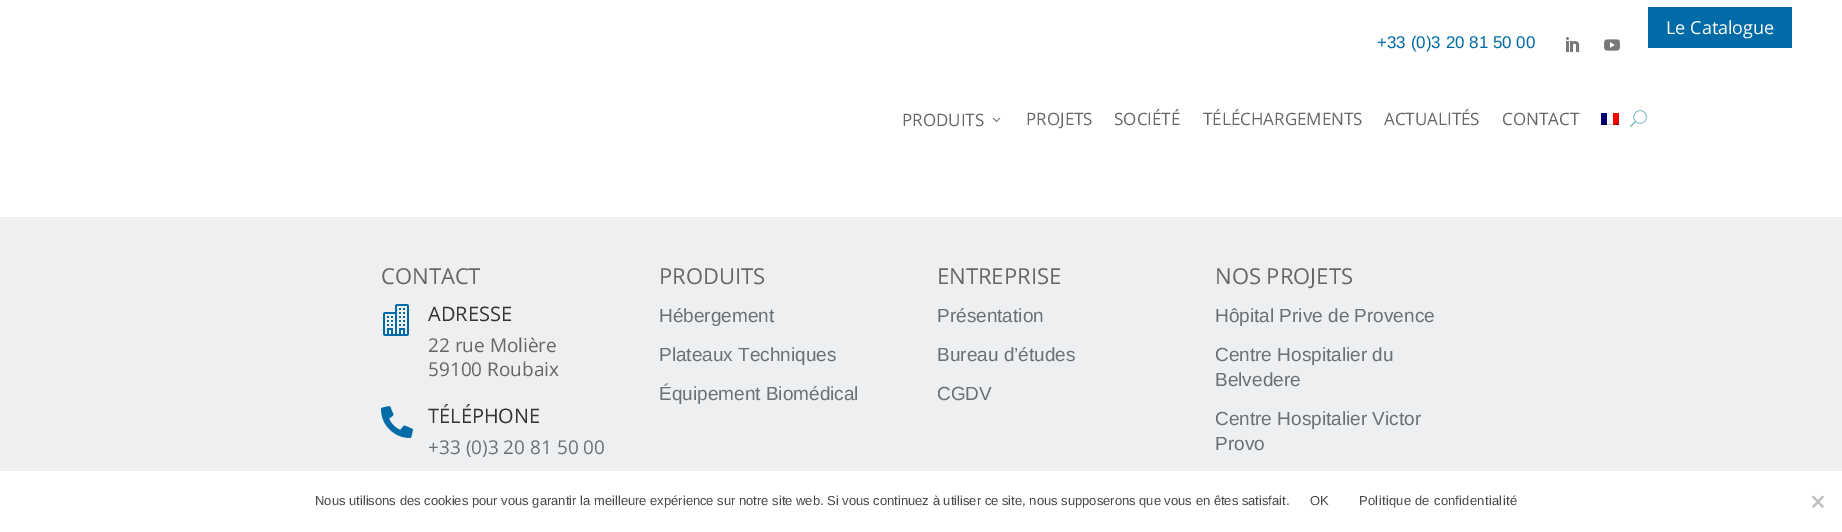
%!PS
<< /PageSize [1842 532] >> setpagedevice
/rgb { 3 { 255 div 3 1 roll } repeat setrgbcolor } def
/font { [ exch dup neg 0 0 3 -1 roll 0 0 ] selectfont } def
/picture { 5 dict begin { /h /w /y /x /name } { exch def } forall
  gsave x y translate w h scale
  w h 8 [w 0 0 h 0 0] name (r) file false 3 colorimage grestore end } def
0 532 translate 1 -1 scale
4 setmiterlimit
255 255 255 rgb
0 0 1842 532 rectfill
0 107 166 rgb
1648 7 144 41 rectfill
(img/1.rgb) 1566 37 14 15 picture
(img/2.rgb) 1604 39 16 12 picture
(img/3.rgb) 992 117 9 5 picture
(img/4.rgb) 1601 113 18 12 picture
(img/5.rgb) 1630 110 17 18 picture
238 239 241 rgb
0 217 1842 254 rectfill
(img/6.rgb) 383 304 26 32 picture
(img/7.rgb) 381 406 32 32 picture
192 192 192 rgb
1822.5 495.5 moveto 1824 497 lineto 1813.5 508 lineto 1812 506.5 lineto closepath fill
1812 497 moveto 1813.5 495.5 lineto 1824 506.5 lineto 1822.5 508 lineto closepath fill
/OpenSans-Regular 18 font
255 255 255 rgb
1666 34 moveto (Le Catalogue) show
/LiberationSans-Regular 17 font
0 107 166 rgb
1377 48 moveto (+33 \(0\)3 20 81 50 00) show
/OpenSans-Regular 17 font
102 102 102 rgb
[
  [(PRODUITS) 902 126]
  [(PROJETS) 1026 125]
  [(SOCIÉTÉ) 1114 125]
  [(TÉLÉCHARGEMENTS) 1203 125]
  [(ACTUALITÉS) 1384 125]
  [(CONTACT) 1502 125]
] { aload pop moveto show } forall
/OpenSans-Regular 22 font
381 284 moveto (CONTACT) show
/OpenSans-Regular 20 font
51 51 51 rgb
428 321 moveto (ADRESSE) show
/OpenSans-Regular 19 font
102 102 102 rgb
428 352 moveto (22 rue Molière) show
428 376 moveto (59100 Roubaix) show
/OpenSans-Regular 20 font
51 51 51 rgb
428 423 moveto (TÉLÉPHONE) show
/OpenSans-Regular 19 font
106 112 117 rgb
428 454 moveto (+33 \(0\)3 20 81 50 00) show
/OpenSans-Regular 22 font
102 102 102 rgb
659 284 moveto (PRODUITS) show
/LiberationSans-Regular 19 font
106 112 117 rgb
[
  [(Hébergement) 659 322]
  [(Plateaux Techniques) 659 361]
  [(Équipement Biomédical) 659 400]
] { aload pop moveto show } forall
/OpenSans-Regular 22 font
102 102 102 rgb
937 284 moveto (ENTREPRISE) show
/LiberationSans-Regular 19 font
106 112 117 rgb
[
  [(Présentation) 937 322]
  [(Bureau d’études) 937 361]
  [(CGDV) 937 400]
] { aload pop moveto show } forall
/OpenSans-Regular 22 font
102 102 102 rgb
1215 284 moveto (NOS PROJETS) show
/LiberationSans-Regular 19 font
106 112 117 rgb
[
  [(Hôpital Prive de Provence) 1215 322]
  [(Centre Hospitalier du) 1215 361]
  [(Belvedere) 1215 386]
  [(Centre Hospitalier Victor) 1215 425]
  [(Provo) 1215 450]
] { aload pop moveto show } forall
/LiberationSans-Regular 13 font
71 71 71 rgb
315 505 moveto (Nous utilisons des cookies pour vous garantir la meilleure expérience sur notre site web. Si vous continuez à utiliser ce site, nous supposerons que vous en êtes satisfait.) show
1310 505 moveto 0.25 0 (OK) ashow
1359 505 moveto 0.25 0 (Politique de confidentialité) ashow
showpage
